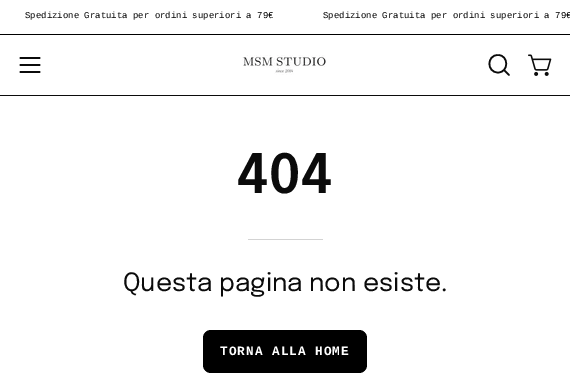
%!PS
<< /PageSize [570 375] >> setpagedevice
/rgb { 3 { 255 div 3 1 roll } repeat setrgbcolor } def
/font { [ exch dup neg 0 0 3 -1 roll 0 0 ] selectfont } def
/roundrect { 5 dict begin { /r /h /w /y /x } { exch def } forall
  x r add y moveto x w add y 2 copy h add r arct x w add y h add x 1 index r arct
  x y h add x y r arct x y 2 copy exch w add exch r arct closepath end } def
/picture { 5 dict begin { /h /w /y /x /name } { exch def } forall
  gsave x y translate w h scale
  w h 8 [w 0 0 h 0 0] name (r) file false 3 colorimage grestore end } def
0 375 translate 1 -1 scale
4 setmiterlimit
255 255 255 rgb
0 0 570 375 rectfill
0 0 0 rgb
0 34 570 1 rectfill
11 11 11 rgb
1.8 setlinewidth
1 setlinecap
1 setlinejoin
20.5 65 moveto 39.5 65 lineto 20.5 58 moveto 39.5 58 lineto 20.5 72 moveto 39.5 72 lineto stroke
(img/1.rgb) 242 55 84 20 picture
1.6 setlinewidth
498 72.5 moveto 509 72.5 509 55 498 55 curveto 486.5 55 486.5 72.5 498 72.5 curveto closepath 504 70 moveto 509 75 lineto stroke
(img/2.rgb) 528 54 24 22 picture
0 95 570 1 rectfill
211 211 211 rgb
248 239 75 1 rectfill
0 0 0 rgb
203 330 164 43 8 roundrect fill
/LiberationMono-Regular 9 font
25 18 moveto (Spedizione Gratuita per ordini superiori a 79€) show
323 18 moveto (Spedizione Gratuita per ordini superiori a 79€) show
/Epilogue-SemiBold 54 font
11 11 11 rgb
237 193 moveto (404) show
/Epilogue-Regular 25.25 font
123 291 moveto (Questa pagina non esiste.) show
/LiberationMono-Bold 12.75 font
255 255 255 rgb
220 355 moveto 1 0 (TORNA ALLA HOME) ashow
showpage
